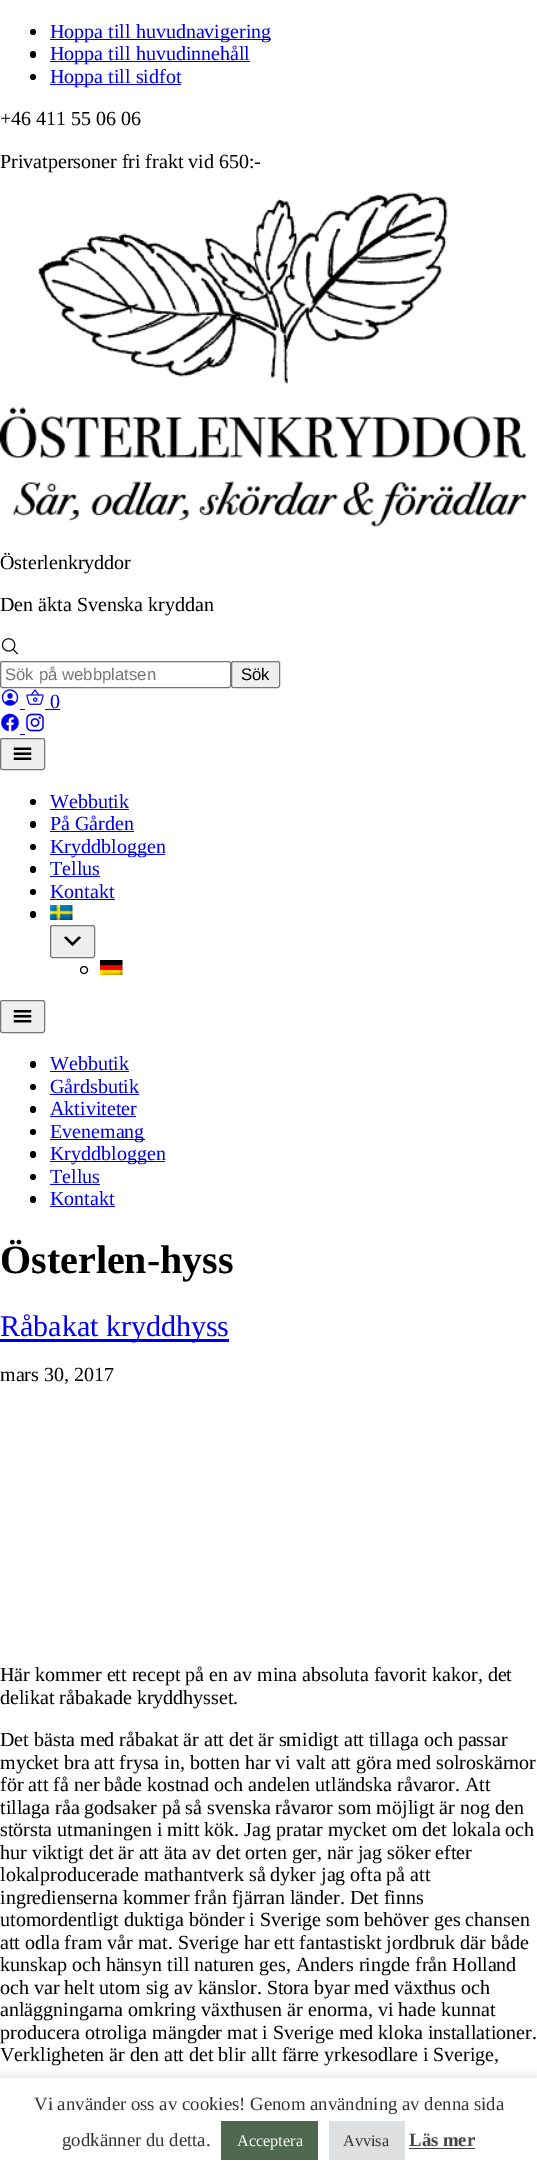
%!PS
<< /PageSize [537 2175] /PageUsesTransparency true >> setpagedevice
/rgb { 3 { 255 div 3 1 roll } repeat setrgbcolor } def
/font { [ exch dup neg 0 0 3 -1 roll 0 0 ] selectfont } def
/alpha { dup .setfillconstantalpha .setstrokeconstantalpha } def
/circle { newpath 0 360 arc closepath } def
/roundrect { 5 dict begin { /r /h /w /y /x } { exch def } forall
  x r add y moveto x w add y 2 copy h add r arct x w add y h add x 1 index r arct
  x y h add x y r arct x y 2 copy exch w add exch r arct closepath end } def
/shadow { 12 dict begin { /a /b /q /h /w /y /x } { exch def } forall gsave /was 0 def
  9 -2 -9 { dup b mul 4 div /e exch def 1 sub .425 mul 2.718 exch exp 1 add a .99 .min exch div /now exch def
    1 1 now sub 1 was sub div sub alpha /was now def
    w h .min e 2 mul add 0 gt { x e sub y e sub w e 2 mul add h e 2 mul add
      q e add b .6 mul add w h .min 2 div e add .min 0 .max roundrect fill } if } for grestore end } def
/picture { 5 dict begin { /h /w /y /x /name } { exch def } forall
  gsave x y translate w h scale
  w h 8 [w 0 0 h 0 0] name (r) file false 3 colorimage grestore end } def
0 .pushpdf14devicefilter
0 2175 translate 1 -1 scale
4 setmiterlimit
255 255 255 rgb
0 0 537 2175 rectfill
0 0 0 rgb
33 32 3 circle fill
0 0 238 rgb
50 39 221 1 rectfill
0 0 0 rgb
30 51 6 7 3 roundrect fill
0 0 238 rgb
50 61 200 1 rectfill
0 0 0 rgb
33 77 3 circle fill
0 0 238 rgb
50 84 131 1 rectfill
(img/1.rgb) 0 192 527 335 picture
(img/2.rgb) 1 638 18 17 picture
118 118 118 rgb
0.5 661.5 230 26 2 roundrect stroke
239 239 239 rgb
231.5 661.5 48 26 2 roundrect gsave fill grestore
118 118 118 rgb
stroke
(img/3.rgb) 1 689 18 17 picture
0 0 238 rgb
20 709 5 1 rectfill
(img/4.rgb) 26 689 18 16 picture
45 709 15 1 rectfill
(img/5.rgb) 1 713 18 19 picture
20 734 5 1 rectfill
(img/6.rgb) 26 713 18 19 picture
239 239 239 rgb
0.5 738.5 44 31 2 roundrect gsave fill grestore
118 118 118 rgb
stroke
(img/7.rgb) 13 747 19 13 picture
0 0 0 rgb
33 802 3 circle fill
0 0 238 rgb
50 809 79 1 rectfill
0 0 0 rgb
30 821 6 7 3 roundrect fill
0 0 238 rgb
50 831 84 1 rectfill
0 0 0 rgb
33 847 3 circle fill
0 0 238 rgb
50 854 115 1 rectfill
0 0 0 rgb
30 866 6 7 3 roundrect fill
0 0 238 rgb
50 876 50 1 rectfill
0 0 0 rgb
33 892 3 circle fill
0 0 238 rgb
50 899 65 1 rectfill
0 0 0 rgb
30 911 6 7 3 roundrect fill
(img/8.rgb) 50 905 23 15 picture
239 239 239 rgb
50.5 925.5 44 32 2 roundrect gsave fill grestore
118 118 118 rgb
stroke
(img/9.rgb) 63 936 19 11 picture
0 0 0 rgb
84 970 3.5 circle stroke
(img/10.rgb) 100 960 23 15 picture
239 239 239 rgb
0.5 1000.5 44 32 2 roundrect gsave fill grestore
118 118 118 rgb
stroke
(img/11.rgb) 13 1010 19 13 picture
0 0 0 rgb
30 1061 6 7 3 roundrect fill
0 0 238 rgb
50 1071 79 1 rectfill
0 0 0 rgb
33 1087 3 circle fill
0 0 238 rgb
50 1094 89 1 rectfill
0 0 0 rgb
30 1106 6 7 3 roundrect fill
0 0 238 rgb
50 1116 86 1 rectfill
0 0 0 rgb
33 1132 3 circle fill
0 0 238 rgb
50 1139 95 1 rectfill
0 0 0 rgb
30 1151 6 7 3 roundrect fill
0 0 238 rgb
50 1161 115 1 rectfill
0 0 0 rgb
33 1177 3 circle fill
0 0 238 rgb
50 1184 50 1 rectfill
0 0 0 rgb
30 1196 6 7 3 roundrect fill
0 0 238 rgb
50 1206 65 1 rectfill
0 1339 229 3 rectfill
172 171 171 rgb
0 2076 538 98 0 6 0.3 shadow
[
  [0 2078 537 97 255 255 255]
  [221 2121 97 39 79 104 80]
  [329 2121 76 39 222 223 224]
  [409 2148 66 1 68 68 68]
] { aload pop rgb rectfill } forall
/LiberationSerif-Regular 20 font
0 0 238 rgb
[
  [(Hoppa till huvudnavigering) 50 38]
  [(Hoppa till huvudinnehåll) 50 60]
  [(Hoppa till sidfot) 50 83]
] { aload pop moveto show } forall
0 0 0 rgb
[
  [(+46 411 55 06 06) 0 125]
  [(Privatpersoner fri frakt vid 650:-) 0 168]
  [(Österlenkryddor) 0 569]
  [(Den äkta Svenska kryddan) 0 611]
] { aload pop moveto show } forall
/LiberationSans-Regular 16.75 font
117 117 117 rgb
5 680 moveto (Sök på webbplatsen) show
0 0 0 rgb
241 680 moveto (Sök) show
/LiberationSerif-Regular 20 font
0 0 238 rgb
[
  [(0) 50 708]
  [(Webbutik) 50 808]
  [(På Gården) 50 830]
  [(Kryddbloggen) 50 853]
  [(Tellus) 50 875]
  [(Kontakt) 50 898]
  [(Webbutik) 50 1070]
  [(Gårdsbutik) 50 1093]
  [(Aktiviteter) 50 1115]
  [(Evenemang) 50 1138]
  [(Kryddbloggen) 50 1160]
  [(Tellus) 50 1183]
  [(Kontakt) 50 1205]
] { aload pop moveto show } forall
/LiberationSerif-Bold 40 font
0 0 0 rgb
0 1273 moveto (Österlen-hyss) show
/LiberationSerif-Regular 30 font
0 0 238 rgb
0 1336 moveto (Råbakat kryddhyss) show
/LiberationSerif-Regular 20 font
0 0 0 rgb
[
  [(mars 30, 2017) 0 1381]
  [(Här kommer ett recept på en av mina absoluta favorit kakor, det) 0 1681]
  [(delikat råbakade kryddhysset.) 0 1704]
  [(Det bästa med råbakat är att det är smidigt att tillaga och passar) 0 1746]
  [(mycket bra att frysa in, botten har vi valt att göra med solroskärnor) 0 1769]
  [(för att få ner både kostnad och andelen utländska råvaror. Att) 0 1791]
  [(tillaga råa godsaker på så svenska råvaror som möjligt är nog den) 0 1814]
  [(största utmaningen i mitt kök. Jag pratar mycket om det lokala och) 0 1836]
  [(hur viktigt det är att äta av det orten ger, när jag söker efter) 0 1859]
  [(lokalproducerade mathantverk så dyker jag ofta på att) 0 1881]
  [(ingredienserna kommer från fjärran länder. Det finns) 0 1904]
  [(utomordentligt duktiga bönder i Sverige som behöver ges chansen) 0 1926]
  [(att odla fram vår mat. Sverige har ett fantastiskt jordbruk där både) 0 1949]
  [(kunskap och hänsyn till naturen ges, Anders ringde från Holland) 0 1971]
  [(och var helt utom sig av känslor. Stora byar med växthus och) 0 1994]
  [(anläggningarna omkring växthusen är enorma, vi hade kunnat) 0 2016]
  [(producera otroliga mängder mat i Sverige med kloka installationer.) 0 2039]
  [(Verkligheten är den att det blir allt färre yrkesodlare i Sverige,) 0 2061]
] { aload pop moveto show } forall
/LiberationSerif-Regular 18.75 font
51 51 51 rgb
34 2110 moveto (Vi använder oss av cookies! Genom användning av denna sida) show
62 2146 moveto (godkänner du detta.) show
/LiberationSerif-Regular 16.25 font
255 255 255 rgb
237 2146 moveto (Acceptera) show
51 51 51 rgb
343 2146 moveto (Avvisa) show
/LiberationSerif-Bold 18.75 font
68 68 68 rgb
409 2146 moveto (Läs mer) show
.poppdf14devicefilter showpage
